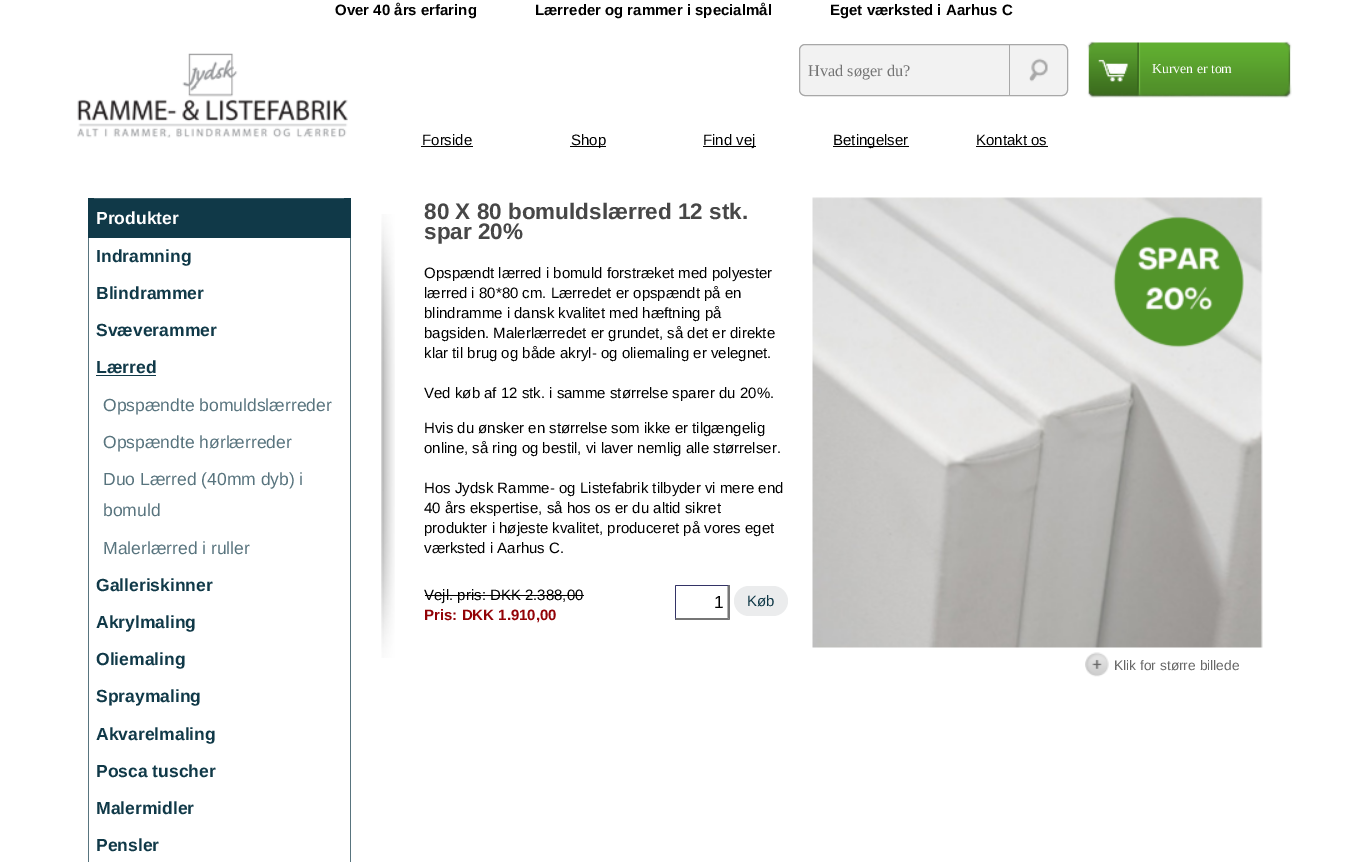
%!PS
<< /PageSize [1348 862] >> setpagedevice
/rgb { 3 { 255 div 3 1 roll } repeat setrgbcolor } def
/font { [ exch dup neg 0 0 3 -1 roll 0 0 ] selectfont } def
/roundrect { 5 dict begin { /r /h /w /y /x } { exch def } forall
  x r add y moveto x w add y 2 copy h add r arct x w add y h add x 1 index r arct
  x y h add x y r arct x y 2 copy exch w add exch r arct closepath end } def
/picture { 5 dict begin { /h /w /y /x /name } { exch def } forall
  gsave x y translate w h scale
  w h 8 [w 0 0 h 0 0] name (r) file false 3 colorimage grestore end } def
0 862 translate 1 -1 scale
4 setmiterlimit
255 255 255 rgb
0 0 1348 862 rectfill
(img/1.rgb) 77 53 271 85 picture
242 242 242 rgb
799.5 44.5 268 51 5.5 roundrect gsave fill grestore
168 168 168 rgb
stroke
1009 45 1 50 rectfill
(img/2.rgb) 1029 58 19 24 picture
(img/3.rgb) 1087 41 205 57 picture
[
  [421 146 52 1 0 0 0]
  [570 146 36 1 0 0 0]
  [703 146 53 1 0 0 0]
  [833 146 76 1 0 0 0]
  [976 146 72 1 0 0 0]
  [88 198 263 40 16 57 72]
  [94 198 250 1 64 97 109]
  [350 238 1 624 88 116 126]
  [88 238 1 624 88 116 126]
  [96 375 60 1 16 57 72]
] { aload pop rgb rectfill } forall
(img/4.rgb) 381 214 14 444 picture
0 0 0 rgb
425 595 159 1 rectfill
51 51 102 rgb
675 585 moveto 730 585 lineto 728 586 lineto 676 586 lineto closepath fill
118 118 118 rgb
730 585 moveto 730 620 lineto 727.5 617.5 lineto 727.5 586 lineto closepath fill
730 620 moveto 675 620 lineto 676 618 lineto 728 618 lineto closepath fill
51 51 102 rgb
675 620 moveto 675 585 lineto 676 586 lineto 676 617.5 lineto closepath fill
235 236 237 rgb
734 586 54 30 15 roundrect fill
(img/5.rgb) 812 197 451 451 picture
(img/6.rgb) 1085 652 24 25 picture
/LiberationSans-Bold 15 font
0 0 0 rgb
335 15 moveto (Over 40 års erfaring              Lærreder og rammer i specialmål              Eget værksted i Aarhus C) show
/LiberationSerif-Regular 16.25 font
117 117 117 rgb
808 76 moveto (Hvad søger du?) show
/LiberationSerif-Regular 13.75 font
255 255 255 rgb
1152 73 moveto (Kurven er tom) show
/LiberationSans-Regular 15 font
0 0 0 rgb
[
  [(Forside) 422 145]
  [(Shop) 571 145]
  [(Find vej) 703 145]
  [(Betingelser) 833 145]
  [(Kontakt os) 976 145]
] { aload pop moveto show } forall
/LiberationSans-Bold 17.5 font
255 255 255 rgb
96 224 moveto (Produkter) show
16 57 72 rgb
[
  [(Indramning) 96 262]
  [(Blindrammer) 96 299]
  [(Svæverammer) 96 336]
  [(Lærred) 96 373]
] { aload pop moveto show } forall
/LiberationSans-Regular 17.5 font
88 116 126 rgb
[
  [(Opspændte bomuldslærreder) 103 411]
  [(Opspændte hørlærreder) 103 448]
  [(Duo Lærred \(40mm dyb\) i) 103 485]
  [(bomuld) 103 516]
  [(Malerlærred i ruller) 103 554]
] { aload pop moveto show } forall
/LiberationSans-Bold 17.5 font
16 57 72 rgb
[
  [(Galleriskinner) 96 591]
  [(Akrylmaling) 96 628]
  [(Oliemaling) 96 665]
  [(Spraymaling) 96 702]
  [(Akvarelmaling) 96 740]
  [(Posca tuscher) 96 777]
  [(Malermidler) 96 814]
  [(Pensler) 96 851]
] { aload pop moveto show } forall
/LiberationSans-Bold 22.5 font
71 71 71 rgb
424 219 moveto (80 X 80 bomuldslærred 12 stk.) show
424 239 moveto (spar 20%) show
/LiberationSans-Regular 15 font
0 0 0 rgb
[
  [(Opspændt lærred i bomuld forstræket med polyester) 424 278]
  [(lærred i 80*80 cm. Lærredet er opspændt på en) 424 298]
  [(blindramme i dansk kvalitet med hæftning på) 424 318]
  [(bagsiden. Malerlærredet er grundet, så det er direkte) 424 338]
  [(klar til brug og både akryl- og oliemaling er velegnet.) 424 358]
  [(Ved køb af 12 stk. i samme størrelse sparer du 20%.) 424 398]
  [(Hvis du ønsker en størrelse som ikke er tilgængelig) 424 433]
  [(online, så ring og bestil, vi laver nemlig alle størrelser.) 424 453]
  [(Hos Jydsk Ramme- og Listefabrik tilbyder vi mere end) 424 493]
  [(40 års ekspertise, så hos os er du altid sikret) 424 513]
  [(produkter i højeste kvalitet, produceret på vores eget) 424 533]
  [(værksted i Aarhus C.) 424 553]
  [(Vejl. pris: DKK 2.388,00) 424 600]
] { aload pop moveto show } forall
/LiberationSans-Regular 17.5 font
714 608 moveto (1) show
/LiberationSans-Regular 15 font
16 57 72 rgb
747 606 moveto (Køb) show
/LiberationSans-Bold 15 font
146 2 6 rgb
424 620 moveto (Pris: DKK 1.910,00) show
/LiberationSans-Regular 13.75 font
102 102 102 rgb
1114 670 moveto (Klik for større billede) show
showpage
